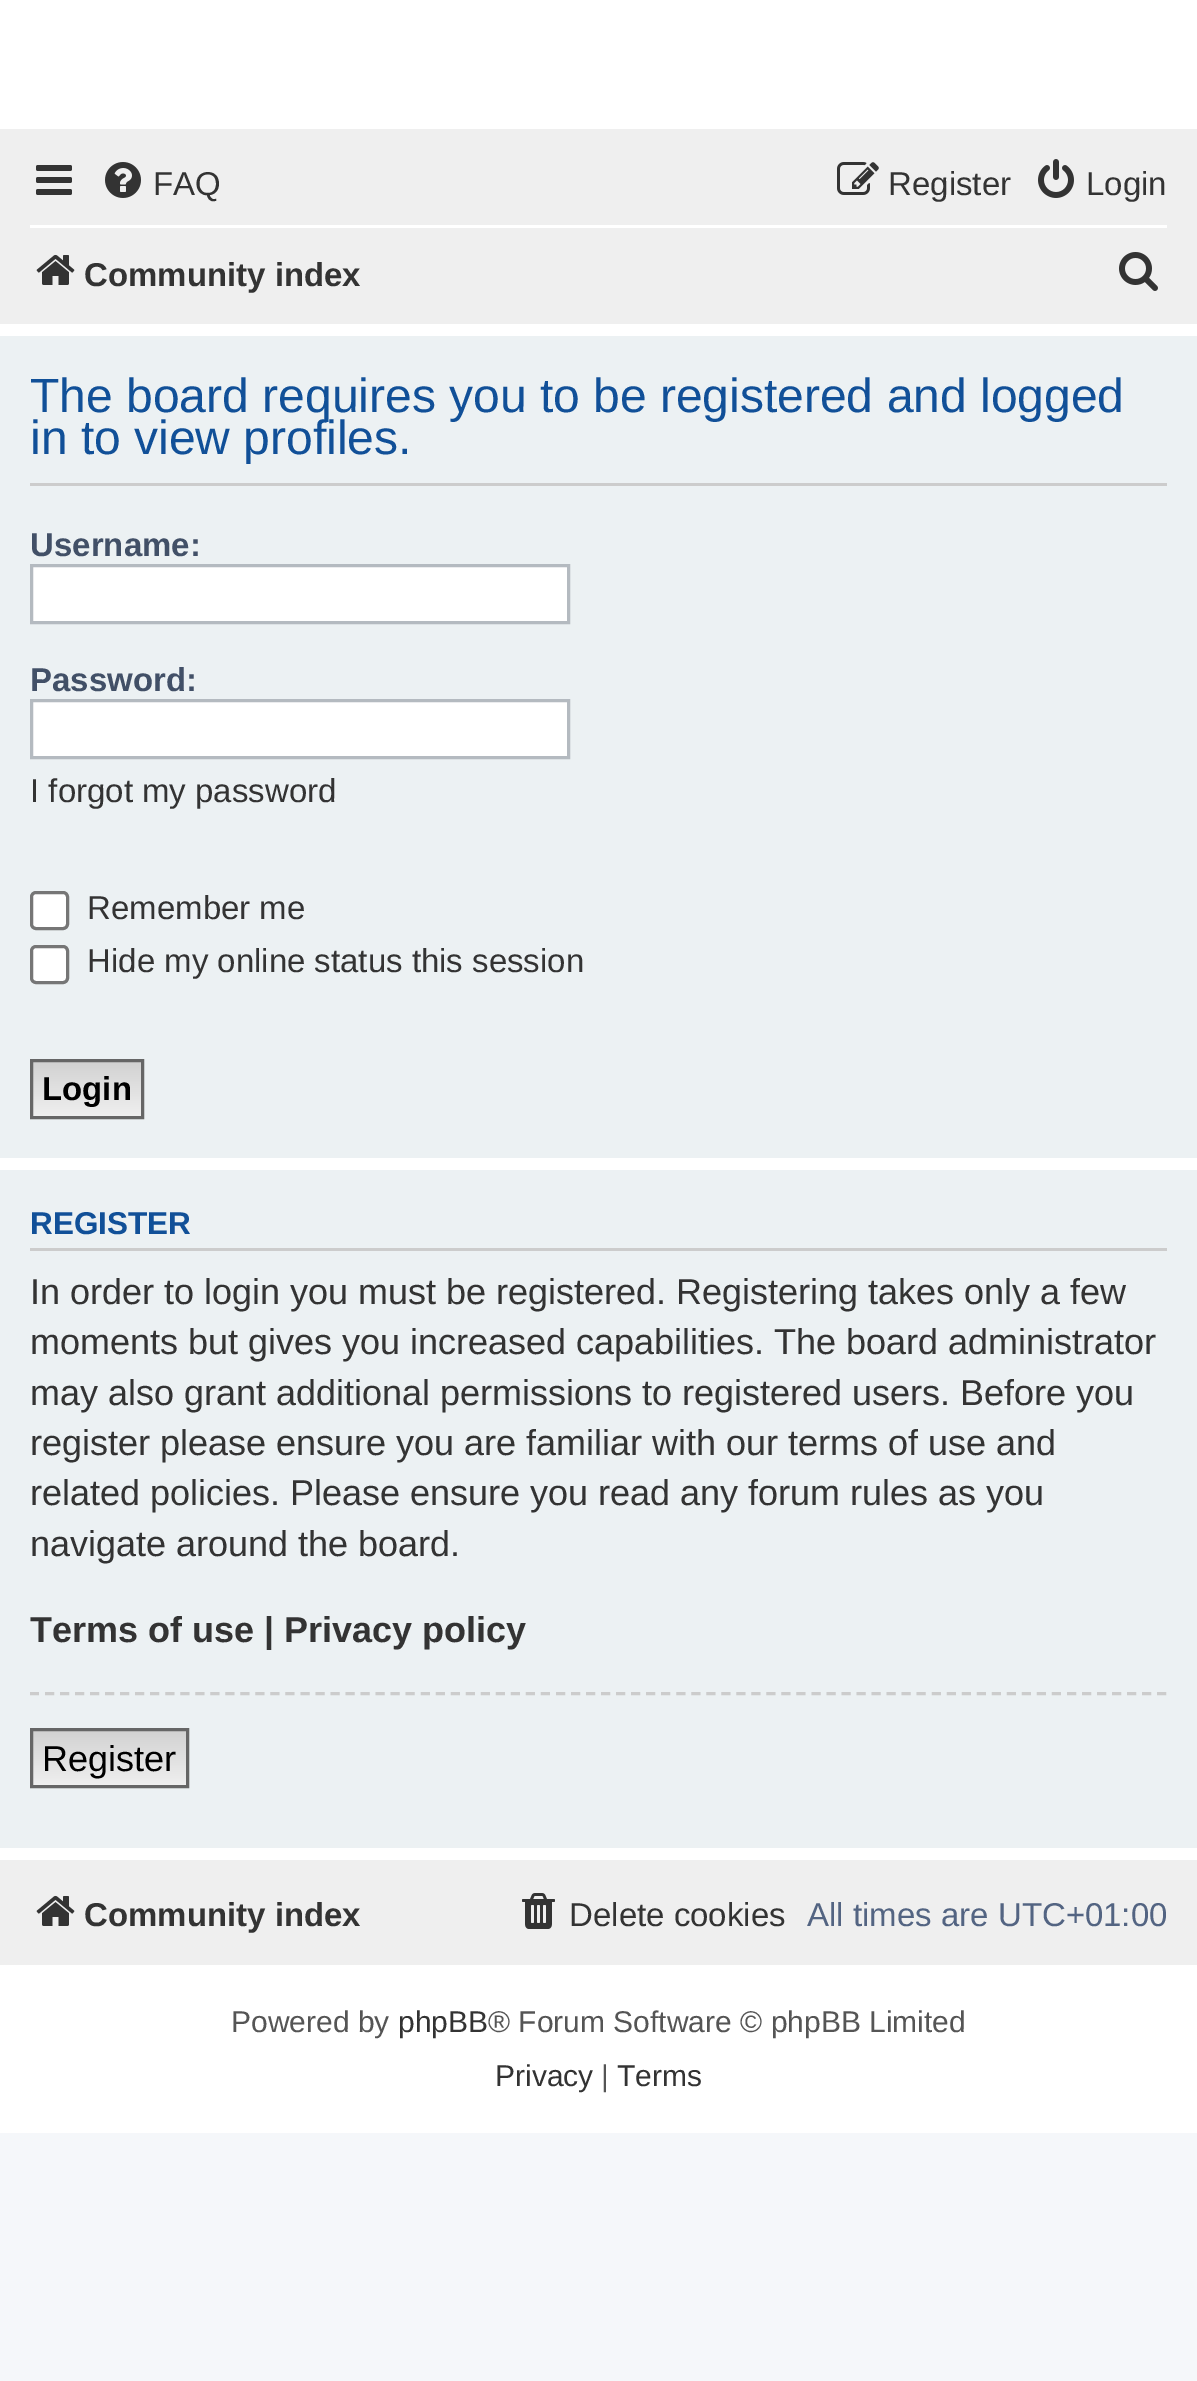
%!PS
<< /PageSize [1197 2381] >> setpagedevice
/rgb { 3 { 255 div 3 1 roll } repeat setrgbcolor } def
/font { [ exch dup neg 0 0 3 -1 roll 0 0 ] selectfont } def
/roundrect { 5 dict begin { /r /h /w /y /x } { exch def } forall
  x r add y moveto x w add y 2 copy h add r arct x w add y h add x 1 index r arct
  x y h add x y r arct x y 2 copy exch w add exch r arct closepath end } def
/picture { 5 dict begin { /h /w /y /x /name } { exch def } forall
  gsave x y translate w h scale
  w h 8 [w 0 0 h 0 0] name (r) file false 3 colorimage grestore end } def
0 2381 translate 1 -1 scale
4 setmiterlimit
245 247 250 rgb
0 0 1197 2381 rectfill
255 255 255 rgb
0 0 1197 2133 rectfill
239 239 239 rgb
0 129 1197 195 rectfill
(img/1.rgb) 36 165 36 30 picture
(img/2.rgb) 105 162 36 36 picture
(img/3.rgb) 837 162 42 33 picture
(img/4.rgb) 1038 159 36 39 picture
255 255 255 rgb
30 225 1137 3 rectfill
(img/5.rgb) 36 254 39 31 picture
(img/6.rgb) 1119 252 39 39 picture
236 241 243 rgb
0 336 1197 822 rectfill
204 204 204 rgb
30 483 1137 3 rectfill
255 255 255 rgb
31.5 565.5 moveto 568.5 565.5 lineto 568.5 622.5 lineto 31.5 622.5 lineto closepath gsave fill grestore
180 186 192 rgb
3 setlinewidth
stroke
255 255 255 rgb
31.5 700.5 moveto 568.5 700.5 lineto 568.5 757.5 lineto 31.5 757.5 lineto closepath gsave fill grestore
180 186 192 rgb
stroke
255 255 255 rgb
31.5 892.5 36 36 4.5 roundrect gsave fill grestore
118 118 118 rgb
stroke
255 255 255 rgb
31.5 946.5 36 36 4.5 roundrect gsave fill grestore
118 118 118 rgb
stroke
gsave 33 1062 moveto 141 1062 lineto 141 1116 lineto 33 1116 lineto closepath clip newpath
<< /ShadingType 2 /ColorSpace /DeviceRGB /Coords [87 1062 87 1116] /Extend [true true] /Function << /FunctionType 2 /Domain [0 1] /C0 [0.824 0.824 0.824] /C1 [0.937 0.937 0.937] /N 1 >> >> shfill grestore
102 102 102 rgb
31.5 1060.5 111 57 rectstroke
236 241 243 rgb
0 1170 1197 678 rectfill
204 204 204 rgb
30 1248 1137 3 rectfill
[9 6.03] 0 setdash
30 1693.5 moveto 1167 1693.5 lineto stroke
gsave 33 1731 moveto 186 1731 lineto 186 1785 lineto 33 1785 lineto closepath clip newpath
<< /ShadingType 2 /ColorSpace /DeviceRGB /Coords [110 1731 110 1785] /Extend [true true] /Function << /FunctionType 2 /Domain [0 1] /C0 [0.824 0.824 0.824] /C1 [0.937 0.937 0.937] /N 1 >> >> shfill grestore
102 102 102 rgb
[] 0 setdash
31.5 1729.5 156 57 rectstroke
239 239 239 rgb
0 1860 1197 105 rectfill
(img/5.rgb) 36 1895 39 31 picture
(img/7.rgb) 522 1893 33 36 picture
/LiberationSans-Regular 33 font
51 51 51 rgb
[
  [(FAQ) 153 195]
  [(Register) 888 195]
  [(Login) 1086 195]
] { aload pop moveto show } forall
/LiberationSans-Bold 33 font
84 286 moveto (Community index) show
/LiberationSans-Regular 48 font
17 80 152 rgb
30 412 moveto (The board requires you to be registered and logged) show
30 454 moveto (in to view profiles.) show
/LiberationSans-Bold 33 font
66 80 103 rgb
30 556 moveto (Username:) show
30 691 moveto (Password:) show
/LiberationSans-Regular 33 font
51 51 51 rgb
[
  [(I forgot my password) 30 802]
  [(Remember me) 87 919]
  [(Hide my online status this session) 87 972]
] { aload pop moveto show } forall
/LiberationSans-Bold 33 font
0 0 0 rgb
42 1100 moveto (Login) show
/LiberationSans-Bold 31.5 font
17 80 152 rgb
30 1234 moveto (REGISTER) show
/LiberationSans-Regular 36 font
51 51 51 rgb
[
  [(In order to login you must be registered. Registering takes only a few) 30 1304]
  [(moments but gives you increased capabilities. The board administrator) 30 1354]
  [(may also grant additional permissions to registered users. Before you) 30 1405]
  [(register please ensure you are familiar with our terms of use and) 30 1455]
  [(related policies. Please ensure you read any forum rules as you) 30 1505]
  [(navigate around the board.) 30 1556]
] { aload pop moveto show } forall
/LiberationSans-Bold 36 font
30 1642 moveto (Terms of use | Privacy policy) show
/LiberationSans-Regular 36 font
0 0 0 rgb
42 1771 moveto (Register) show
/LiberationSans-Bold 33 font
51 51 51 rgb
84 1926 moveto (Community index) show
/LiberationSans-Regular 33 font
569 1926 moveto (Delete cookies) show
83 100 130 rgb
807 1926 moveto (All times are UTC+01:00) show
/LiberationSans-Regular 30 font
85 85 85 rgb
231 2032 moveto (Powered by) show
51 51 51 rgb
398 2032 moveto (phpBB) show
85 85 85 rgb
488 2032 moveto (® Forum Software © phpBB Limited) show
51 51 51 rgb
495 2086 moveto (Privacy) show
85 85 85 rgb
601 2086 moveto (|) show
51 51 51 rgb
617 2086 moveto (Terms) show
showpage
